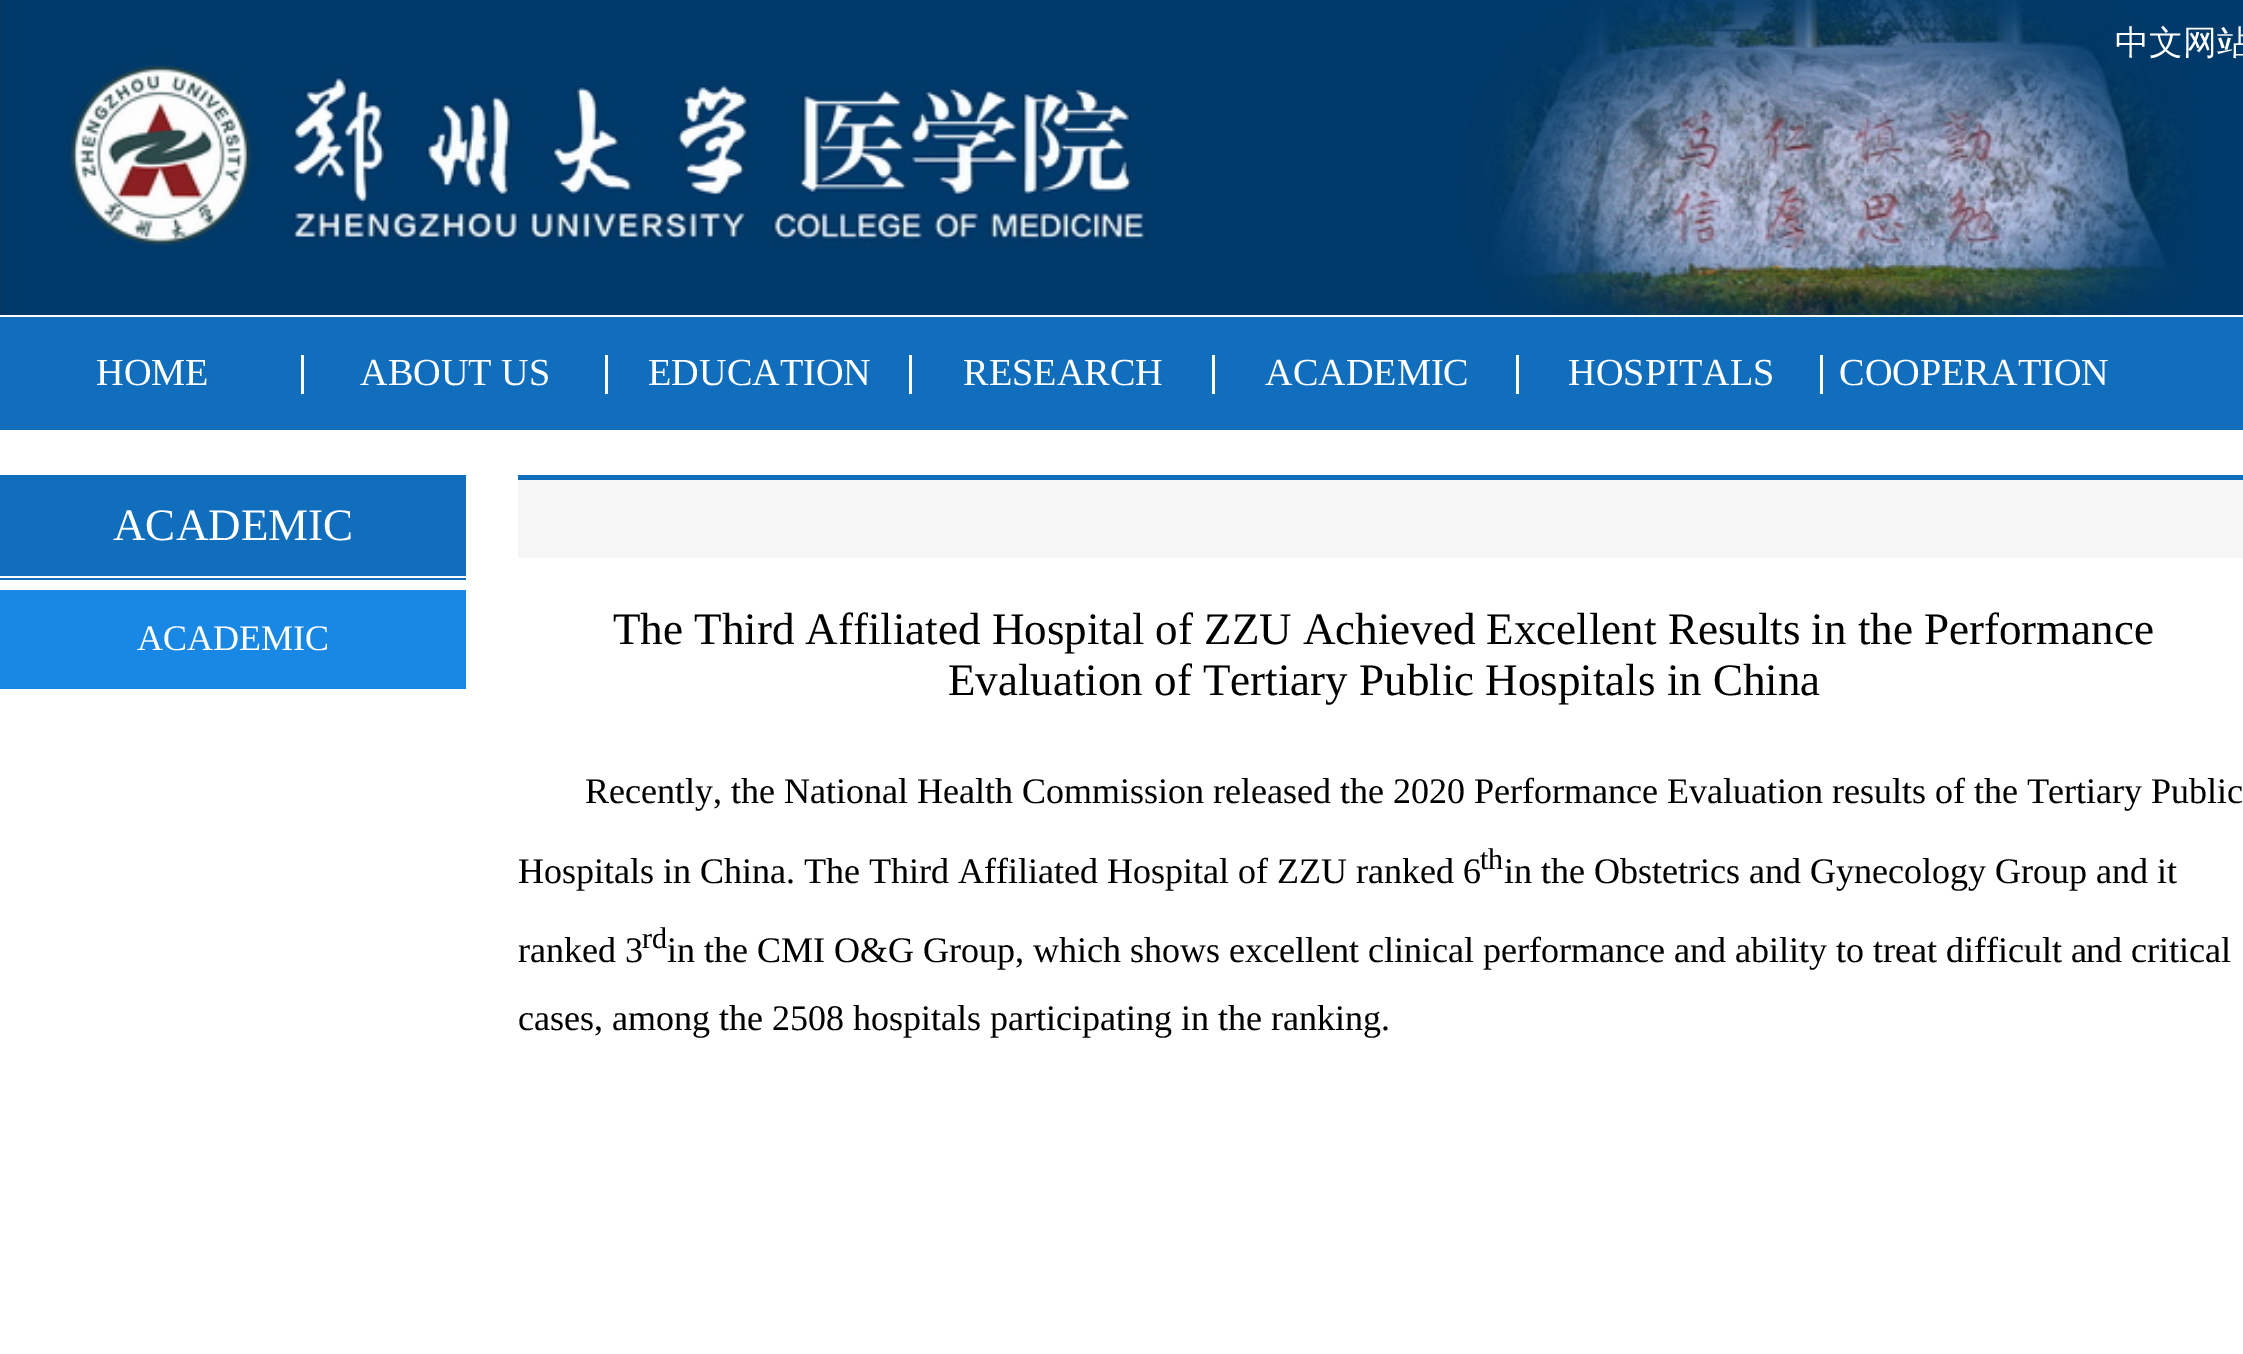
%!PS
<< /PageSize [2243 1354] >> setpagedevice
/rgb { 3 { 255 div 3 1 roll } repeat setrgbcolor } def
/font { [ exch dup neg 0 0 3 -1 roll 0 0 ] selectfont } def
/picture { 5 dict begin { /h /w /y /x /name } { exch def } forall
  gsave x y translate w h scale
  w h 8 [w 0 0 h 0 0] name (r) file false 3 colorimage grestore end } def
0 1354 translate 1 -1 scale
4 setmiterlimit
255 255 255 rgb
0 0 2243 1354 rectfill
0 58 106 rgb
2194 0 49 315 rectfill
(img/1.rgb) 0 0 2194 315 picture
[
  [0 317 2243 113 17 110 189]
  [301 355 3 39 255 255 255]
  [605 355 3 39 255 255 255]
  [909 355 3 39 255 255 255]
  [1212 355 3 39 255 255 255]
  [1516 355 3 39 255 255 255]
  [1820 355 3 39 255 255 255]
  [0 475 466 101 17 110 189]
  [0 578 466 2 17 110 189]
  [0 590 466 99 25 135 228]
  [518 480 1725 78 246 246 246]
  [518 475 1725 5 17 110 189]
] { aload pop rgb rectfill } forall
/WenQuanYiZenHei-Medium 34 font
255 255 255 rgb
2115 54 moveto (中文网站) show
/LiberationSerif-Regular 38.25 font
[
  [(HOME) 96 385]
  [(ABOUT US) 360 385]
  [(EDUCATION) 648 385]
  [(RESEARCH) 963 385]
  [(ACADEMIC) 1265 385]
  [(HOSPITALS) 1568 385]
  [(COOPERATION) 1839 385]
] { aload pop moveto show } forall
/LiberationSerif-Regular 45 font
113 540 moveto (ACADEMIC) show
/LiberationSerif-Regular 36 font
137 650 moveto (ACADEMIC) show
/LiberationSerif-Regular 45 font
0 0 0 rgb
613 644 moveto (The Third Affiliated Hospital of ZZU Achieved Excellent Results in the Performance) show
948 695 moveto (Evaluation of Tertiary Public Hospitals in China) show
/LiberationSerif-Regular 36 font
585 803 moveto (Recently, the National Health Commission released the 2020 Performance Evaluation results of the Tertiary Public) show
518 883 moveto (Hospitals in China. The Third Affiliated Hospital of ZZU ranked 6) show
/LiberationSerif-Regular 30 font
1480 869 moveto (th) show
/LiberationSerif-Regular 36 font
1504 883 moveto (in the Obstetrics and Gynecology Group and it) show
518 962 moveto (ranked 3) show
/LiberationSerif-Regular 30 font
642 948 moveto (rd) show
/LiberationSerif-Regular 36 font
667 962 moveto (in the CMI O&G Group, which shows excellent clinical performance and ability to treat difficult and critical) show
518 1030 moveto (cases, among the 2508 hospitals participating in the ranking.) show
showpage
